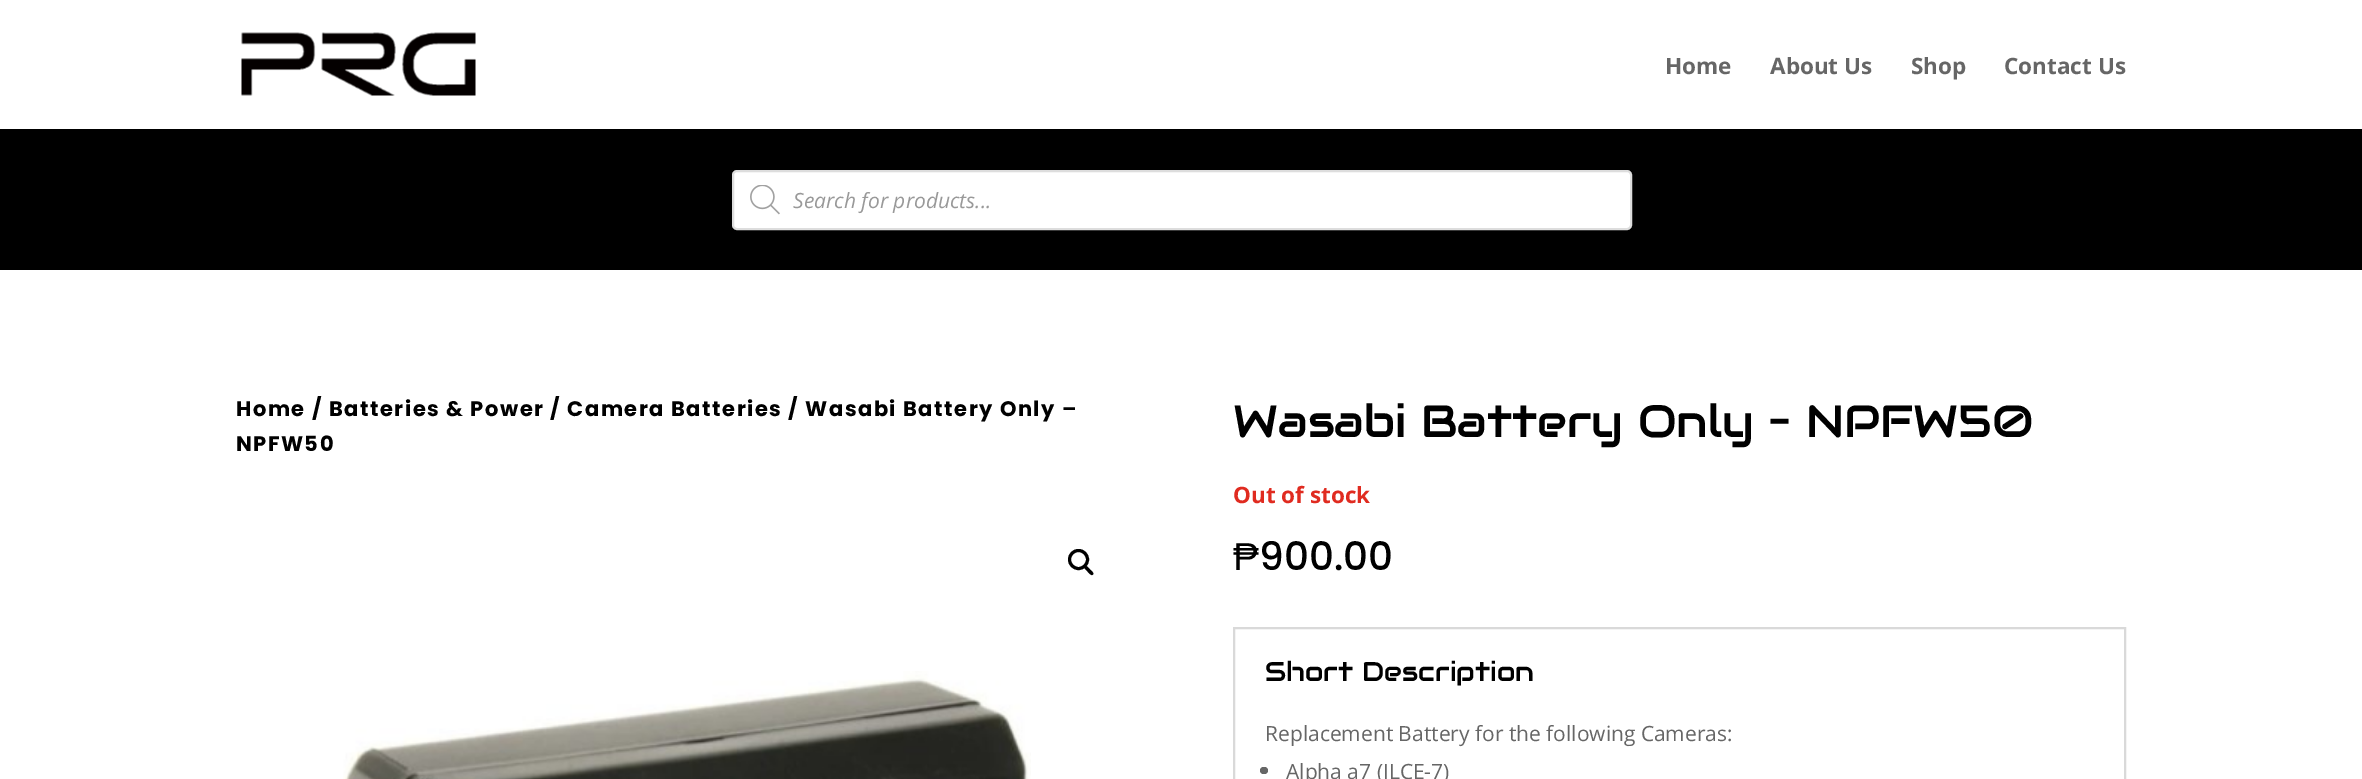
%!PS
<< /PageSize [2362 779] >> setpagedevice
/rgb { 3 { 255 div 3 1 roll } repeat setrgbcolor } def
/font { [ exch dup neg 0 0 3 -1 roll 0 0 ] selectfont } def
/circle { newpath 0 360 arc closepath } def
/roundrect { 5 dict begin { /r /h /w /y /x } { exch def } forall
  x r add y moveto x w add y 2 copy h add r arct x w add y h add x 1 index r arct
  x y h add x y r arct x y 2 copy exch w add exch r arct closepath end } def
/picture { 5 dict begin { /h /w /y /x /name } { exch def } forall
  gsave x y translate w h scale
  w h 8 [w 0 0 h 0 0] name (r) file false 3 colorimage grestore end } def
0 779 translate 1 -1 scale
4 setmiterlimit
255 255 255 rgb
0 0 2362 779 rectfill
(img/1.rgb) 241 32 235 64 picture
0 0 0 rgb
0 129 2362 141 rectfill
255 255 255 rgb
733 171 898 58 4 roundrect gsave fill grestore
221 221 221 rgb
2 setlinewidth
stroke
(img/2.rgb) 750 185 30 30 picture
0 0 0 rgb
3 setlinewidth
1078.5 559.5 9 circle stroke
1084.5 566 moveto 1086 564.5 1089 568.5 1090 569.5 curveto 1090.5 570 1094.5 573 1093 574.5 curveto 1091.5 576.5 1088.5 572.5 1087.5 571.5 curveto 1087 570.5 1083 568 1084.5 566 curveto closepath fill
(img/3.rgb) 343 671 688 108 picture
217 217 217 rgb
2 setlinewidth
1234 628 891 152 rectstroke
102 102 102 rgb
1260 767 8 7 3.5 roundrect fill
/OpenSans-Bold 22.5 font
[
  [(Home) 1665 74]
  [(About Us) 1770 74]
  [(Shop) 1911 74]
  [(Contact Us) 2004 74]
] { aload pop moveto show } forall
/OpenSans-Italic 21 font
153 153 153 rgb
793 208 moveto (Search for products...) show
/Poppins-Bold 21 font
0 0 0 rgb
236 416 moveto 1.5 0 (Home / Batteries & Power / Camera Batteries / Wasabi Battery Only –) ashow
236 451 moveto 1.5 0 (NPFW50) ashow
/Audiowide-Regular 45 font
1233 437 moveto (Wasabi Battery Only – NPFW50) show
/OpenSans-Bold 22.5 font
224 43 32 rgb
1233 503 moveto (Out of stock) show
/LiberationSans-Regular 39 font
0 0 0 rgb
1233 570 moveto (₱) show
/Poppins-Medium 39 font
1259 570 moveto (900.00) show
/Audiowide-Regular 27 font
1265 681 moveto (Short Description) show
/OpenSans-Regular 21 font
102 102 102 rgb
1265 741 moveto (Replacement Battery for the following Cameras:) show
1286 779 moveto (Alpha a7 \(ILCE-7\)) show
showpage
